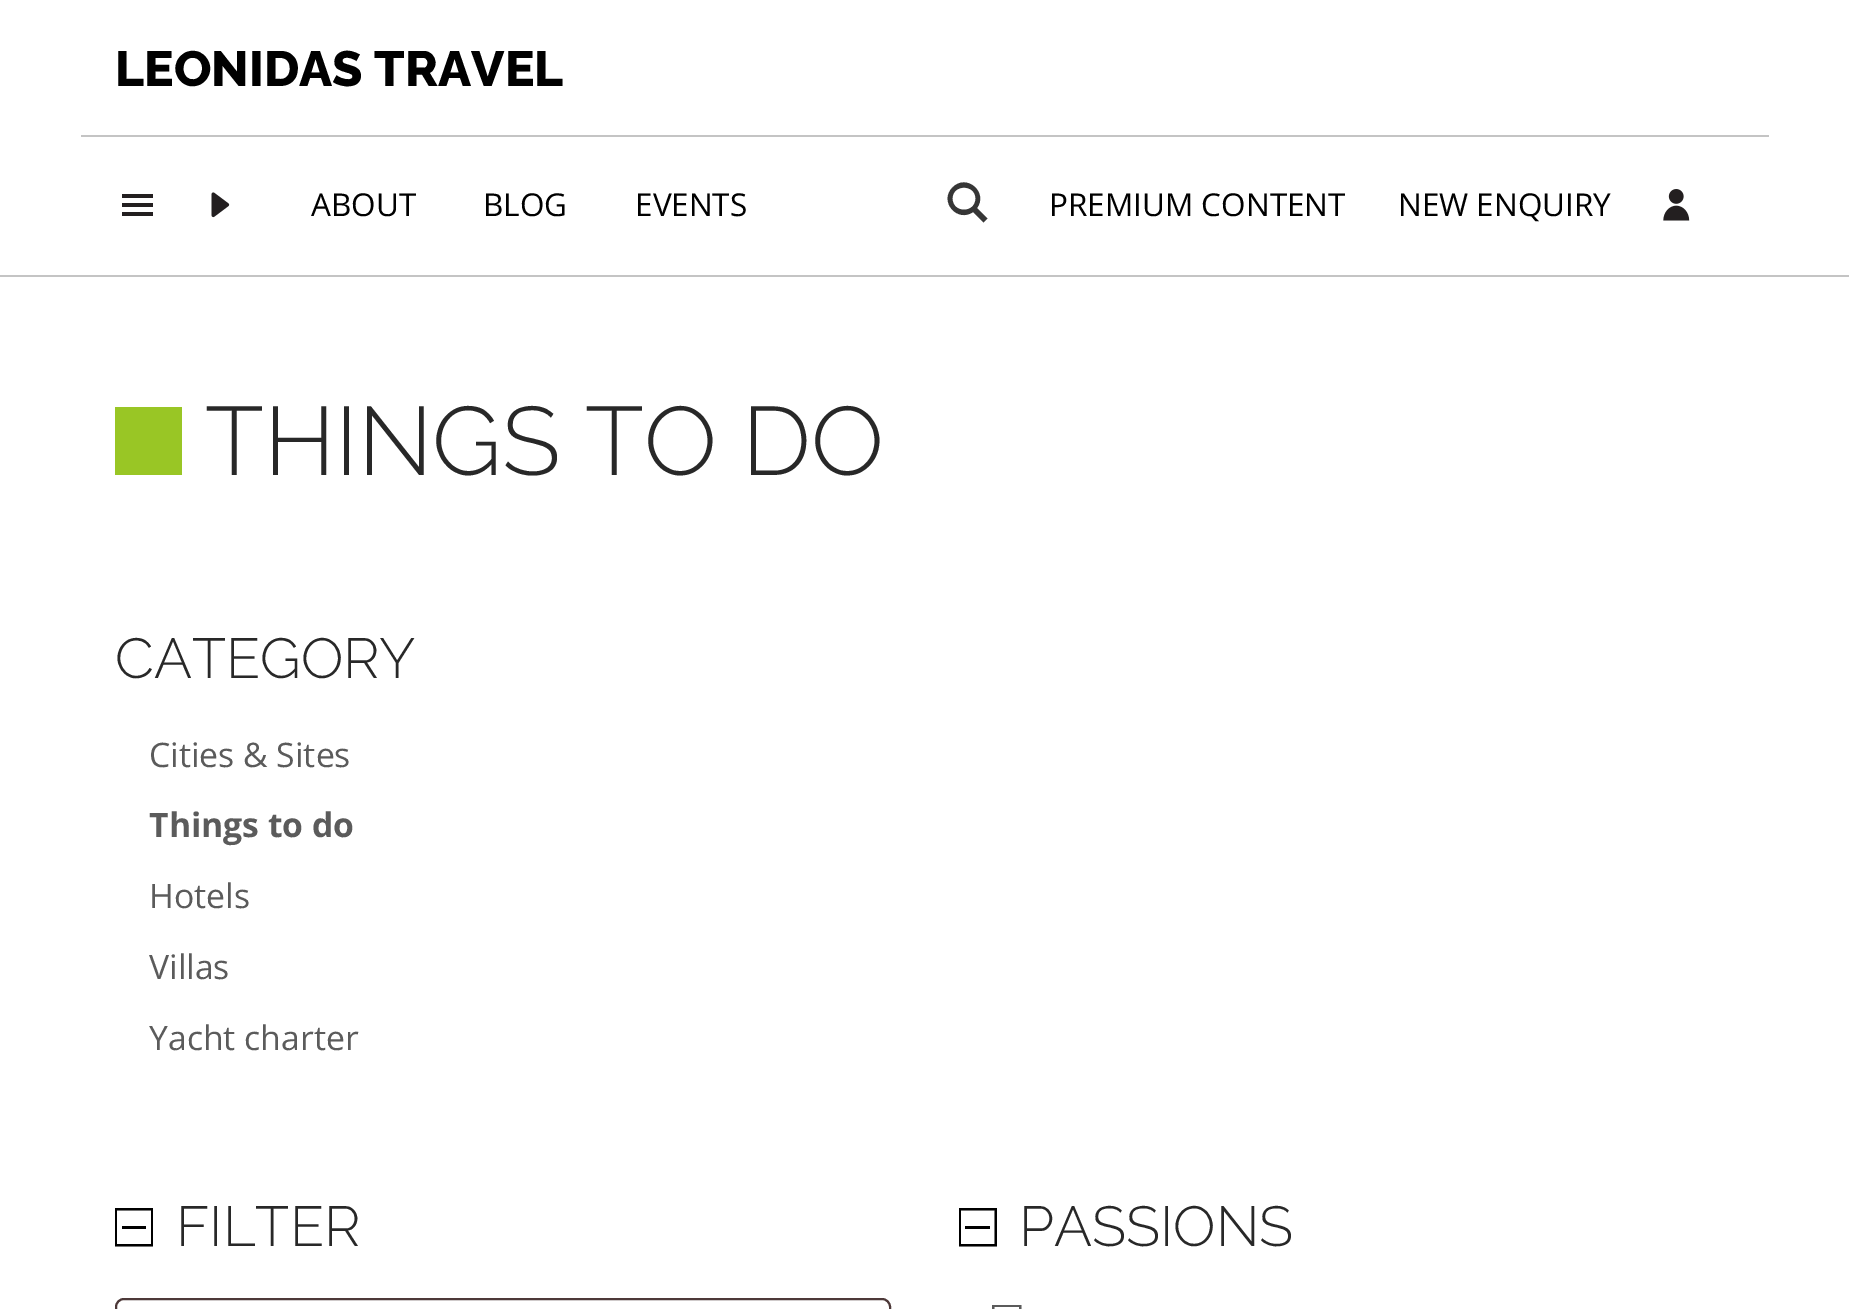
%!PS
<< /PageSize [1849 1309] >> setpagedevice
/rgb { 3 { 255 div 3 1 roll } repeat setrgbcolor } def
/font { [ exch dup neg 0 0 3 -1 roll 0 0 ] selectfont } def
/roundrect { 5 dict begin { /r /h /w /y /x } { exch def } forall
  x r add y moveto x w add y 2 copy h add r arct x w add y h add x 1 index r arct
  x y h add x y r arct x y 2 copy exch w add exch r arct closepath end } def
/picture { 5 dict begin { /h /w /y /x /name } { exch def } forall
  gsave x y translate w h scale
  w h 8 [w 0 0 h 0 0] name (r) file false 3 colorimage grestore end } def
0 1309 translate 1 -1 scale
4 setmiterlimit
255 255 255 rgb
0 0 1849 1309 rectfill
[
  [81 135 1688 2 196 196 196]
  [122 194 31 4 35 31 32]
  [122 203 31 4 35 31 32]
  [122 212 31 4 35 31 32]
] { aload pop rgb rectfill } forall
(img/1.rgb) 211 192 19 26 picture
54 54 54 rgb
987.5 218.5 moveto 977 208 lineto 988.5 192.5 966.5 173 952.5 187.5 curveto 938.5 201.5 957.5 223 973 212 curveto 983.5 222.5 lineto closepath 952.5 198.5 moveto 952.5 184 975.5 184 975.5 198.5 curveto 975.5 213.5 952.5 213.5 952.5 198.5 curveto closepath fill
(img/2.rgb) 1663 189 27 32 picture
196 196 196 rgb
0 275 1849 2 rectfill
153 198 37 rgb
115 407 67 68 rectfill
0 0 0 rgb
151 1210.5 moveto 151 1244 lineto 117 1244 lineto 117 1210.5 lineto 151 1210.5 lineto 153 1208 moveto 115 1208 lineto 115 1246.5 lineto 153 1246.5 lineto closepath fill
122 1226 24 3 rectfill
77 57 57 rgb
2 setlinewidth
116 1299 774 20 8 roundrect stroke
gsave
959 1208 38 39 rectclip
0 0 0 rgb
994.5 1210.5 moveto 994.5 1244 lineto 961 1244 lineto 961 1210.5 lineto 994.5 1210.5 lineto 997 1208 moveto 958.5 1208 lineto 958.5 1246.5 lineto 997 1246.5 lineto closepath fill
grestore
0 0 0 rgb
965 1226 25 3 rectfill
91 91 91 rgb
1019 1307 moveto 1019 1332 lineto 994.5 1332 lineto 994.5 1307 lineto 1019 1307 lineto 1021.5 1305 moveto 992 1305 lineto 992 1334 lineto 1021.5 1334 lineto closepath fill
/Raleway-ExtraBold 49.5 font
0 0 0 rgb
115 86 moveto (LEONIDAS TRAVEL) show
/OpenSans-Regular 31.5 font
[
  [(ABOUT) 311 216]
  [(BLOG) 483 216]
  [(EVENTS) 635 216]
  [(PREMIUM CONTENT) 1049 216]
  [(NEW ENQUIRY) 1398 216]
] { aload pop moveto show } forall
/Raleway-Light 96.75 font
40 40 40 rgb
205 475 moveto (THINGS TO DO) show
/Raleway-Light 56.25 font
115 678 moveto (CATEGORY) show
/OpenSans-Regular 33.75 font
91 91 91 rgb
149 767 moveto (Cities & Sites) show
/OpenSans-Bold 33.75 font
149 837 moveto (Things to do) show
/OpenSans-Regular 33.75 font
[
  [(Hotels) 149 908]
  [(Villas) 149 979]
  [(Yacht charter) 149 1050]
] { aload pop moveto show } forall
/Raleway-Light 56.25 font
40 40 40 rgb
176 1246 moveto (FILTER) show
1019 1246 moveto (PASSIONS) show
showpage
